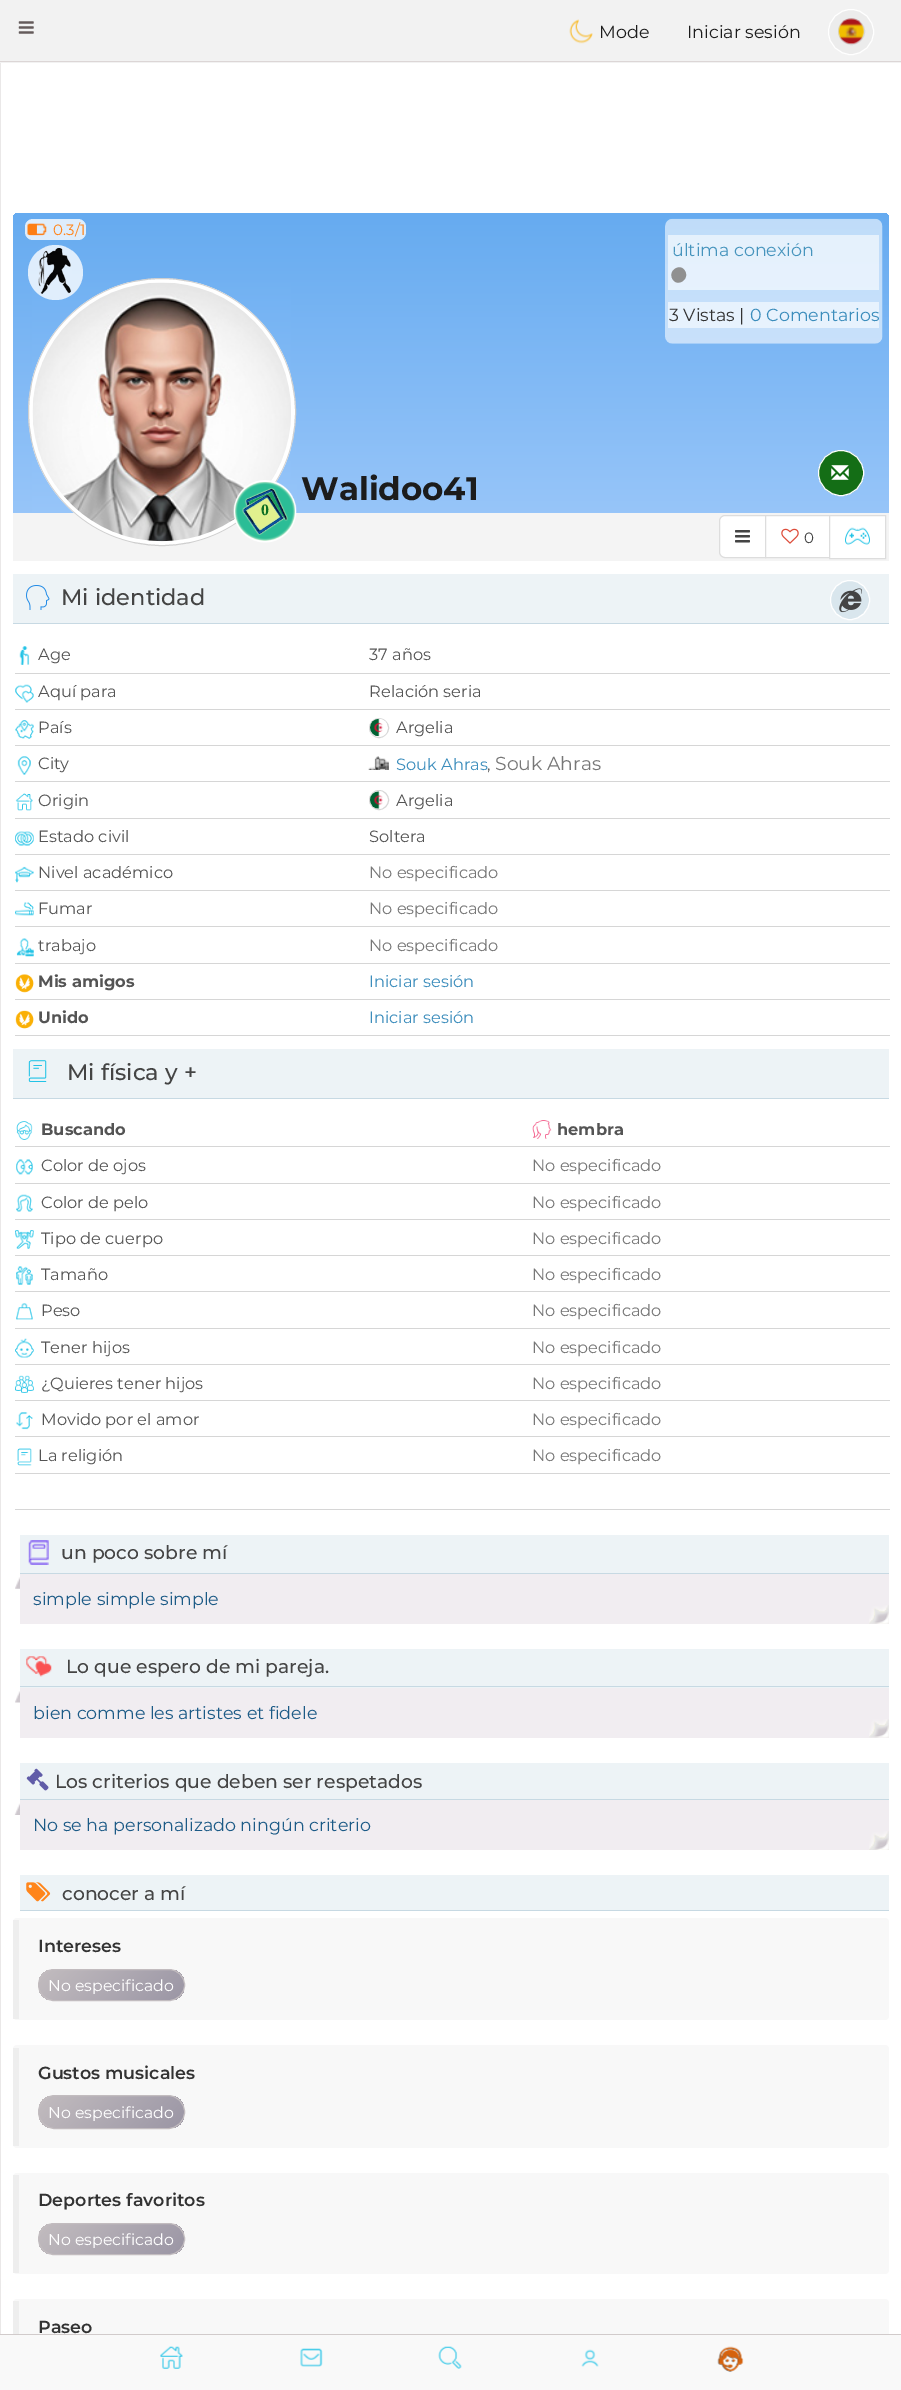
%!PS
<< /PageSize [901 2390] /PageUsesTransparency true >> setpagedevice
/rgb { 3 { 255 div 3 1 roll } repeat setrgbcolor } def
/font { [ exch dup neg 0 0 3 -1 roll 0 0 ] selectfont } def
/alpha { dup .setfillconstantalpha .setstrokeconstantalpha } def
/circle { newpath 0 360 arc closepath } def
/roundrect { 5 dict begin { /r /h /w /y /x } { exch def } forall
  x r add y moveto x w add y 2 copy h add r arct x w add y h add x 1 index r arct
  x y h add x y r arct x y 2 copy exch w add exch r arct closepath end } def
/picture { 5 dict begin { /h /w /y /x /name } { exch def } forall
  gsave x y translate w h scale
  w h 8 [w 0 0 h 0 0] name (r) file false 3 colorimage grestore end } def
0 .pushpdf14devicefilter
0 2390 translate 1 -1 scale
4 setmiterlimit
255 255 255 rgb
0 0 901 2390 rectfill
242 242 242 rgb
0 0 901 63 rectfill
220 214 214 rgb
0 61 901 1 rectfill
(img/1.rgb) 18 21 16 13 picture
(img/2.rgb) 569 19 24 25 picture
236 236 236 rgb
851 32 22.5 circle gsave fill grestore
255 255 255 rgb
stroke
215 215 215 rgb
851.5 31.5 13 circle stroke
(img/3.rgb) 838 18 26 27 picture
234 232 232 rgb
0 63 1 2271 rectfill
gsave 19 213 moveto 883 213 lineto 886.5 213 889 215.5 889 219 curveto 889 513 lineto 13 513 lineto 13 219 lineto 13 215.5 15.5 213 19 213 curveto closepath clip newpath
<< /ShadingType 2 /ColorSpace /DeviceRGB /Coords [451 212 451 513] /Extend [true true] /Function << /FunctionType 2 /Domain [0 1] /C0 [0.4 0.671 0.941] /C1 [0.592 0.773 0.976] /N 1 >> >> shfill grestore
0.78 alpha
255 255 255 rgb
25 219 61 21 8 roundrect fill
1 alpha
(img/4.rgb) 27 223 20 13 picture
244 244 244 rgb
13 513 876 48 rectfill
255 255 255 rgb
162 412 133.5 circle gsave fill grestore
207 207 207 rgb
stroke
(img/8.rgb) 32 282 259 260 picture
0.78 alpha
255 255 255 rgb
55.5 272.5 27.5 circle fill
1 alpha
(img/5.rgb) 38 247 34 47 picture
(img/6.rgb) 665 218 218 126 picture
0.58 alpha
668 235 211 55 rectfill
1 alpha
144 144 144 rgb
685 271 moveto 690 279.5 677 287.5 672.5 279 curveto 667.5 270.5 680.5 262.5 685 271 curveto closepath fill
231 242 253 rgb
668 302 211 26 rectfill
20 110 22 rgb
841 473 22.5 circle gsave fill grestore
255 255 255 rgb
stroke
(img/7.rgb) 831 465 18 15 picture
(img/9.rgb) 233 480 64 63 picture
725 515.5 moveto 765.5 515.5 lineto 765.5 557.5 lineto 725 557.5 lineto 722 557.5 719.5 555 719.5 552 curveto 719.5 521 lineto 719.5 518 722 515.5 725 515.5 curveto closepath gsave fill grestore
221 221 221 rgb
stroke
(img/10.rgb) 735 530 15 13 picture
255 255 255 rgb
765.5 515.5 moveto 829.5 515.5 lineto 829.5 557.5 lineto 765.5 557.5 lineto closepath gsave fill grestore
221 221 221 rgb
stroke
(img/11.rgb) 781 528 18 16 picture
255 255 255 rgb
829.5 515.5 moveto 885.5 515.5 lineto 885.5 558.5 lineto 829.5 558.5 lineto closepath gsave fill grestore
221 221 221 rgb
stroke
(img/12.rgb) 845 527 25 18 picture
237 243 246 rgb
13 574 876 49 rectfill
199 217 227 rgb
13 623 876 1 rectfill
(img/13.rgb) 26 585 24 25 picture
217 230 237 rgb
850 600 19.5 circle gsave fill grestore
255 255 255 rgb
stroke
(img/14.rgb) 839 588 23 25 picture
(img/15.rgb) 19 646 11 19 picture
214 214 214 rgb
15 673 875 1 rectfill
(img/16.rgb) 15 684 19 19 picture
15 709 875 1 rectfill
(img/17.rgb) 15 720 19 19 picture
15 745 875 1 rectfill
215 215 215 rgb
379 728 9.5 circle stroke
(img/18.rgb) 370 718 17 19 picture
(img/19.rgb) 17 756 14 19 picture
214 214 214 rgb
15 781 875 1 rectfill
(img/20.rgb) 368 756 21 14 picture
(img/21.rgb) 15 793 18 18 picture
15 818 875 1 rectfill
215 215 215 rgb
379 800 9.5 circle stroke
(img/22.rgb) 370 791 13 18 picture
(img/23.rgb) 15 831 19 15 picture
214 214 214 rgb
15 854 875 1 rectfill
(img/24.rgb) 15 866 19 17 picture
15 890 875 1 rectfill
(img/25.rgb) 15 902 19 14 picture
15 926 875 1 rectfill
(img/26.rgb) 16 938 18 19 picture
15 963 875 1 rectfill
(img/27.rgb) 15 974 19 19 picture
15 999 875 1 rectfill
(img/28.rgb) 15 1010 19 19 picture
[
  [15 1035 875 1 214 214 214]
  [13 1049 876 49 237 243 246]
  [13 1098 876 1 199 217 227]
] { aload pop rgb rectfill } forall
(img/29.rgb) 28 1060 19 22 picture
(img/30.rgb) 16 1121 17 19 picture
(img/31.rgb) 532 1120 20 19 picture
(img/32.rgb) 16 1159 17 16 picture
214 214 214 rgb
15 1146 875 1 rectfill
15 1183 875 1 rectfill
(img/33.rgb) 16 1194 17 18 picture
15 1219 875 1 rectfill
(img/34.rgb) 15 1230 19 19 picture
15 1255 875 1 rectfill
(img/35.rgb) 16 1266 17 19 picture
15 1291 875 1 rectfill
(img/36.rgb) 16 1303 17 17 picture
15 1328 875 1 rectfill
(img/37.rgb) 15 1338 19 20 picture
15 1364 875 1 rectfill
(img/38.rgb) 15 1375 19 18 picture
15 1400 875 1 rectfill
(img/39.rgb) 16 1412 17 18 picture
15 1436 875 1 rectfill
(img/40.rgb) 17 1448 15 18 picture
[
  [15 1473 875 1 214 214 214]
  [15 1509 875 1 214 214 214]
  [20 1535 869 38 237 243 246]
  [20 1573 869 1 199 217 227]
] { aload pop rgb rectfill } forall
(img/41.rgb) 28 1540 21 25 picture
(img/42.rgb) 15 1577 5 12 picture
241 237 241 rgb
20 1574 869 50 rectfill
(img/43.rgb) 869 1605 20 19 picture
237 243 246 rgb
20 1649 869 39 rectfill
199 217 227 rgb
20 1686 869 1 rectfill
(img/44.rgb) 26 1656 26 21 picture
(img/45.rgb) 15 1691 5 12 picture
241 237 241 rgb
20 1688 869 50 rectfill
(img/46.rgb) 869 1719 20 19 picture
237 243 246 rgb
20 1763 869 36 rectfill
199 217 227 rgb
20 1799 869 1 rectfill
(img/47.rgb) 26 1768 23 23 picture
(img/48.rgb) 14 1803 6 12 picture
241 237 241 rgb
20 1800 869 50 rectfill
(img/49.rgb) 869 1831 20 19 picture
237 243 246 rgb
20 1875 869 35 rectfill
199 217 227 rgb
20 1910 869 1 rectfill
(img/50.rgb) 26 1882 25 20 picture
248 248 248 rgb
13 1918 876 102 4 roundrect fill
238 238 238 rgb
13 1920 6 99 rectfill
gsave
38 1969 147 32 16 roundrect clip newpath
gsave 39 1970 moveto 184 1970 lineto 184 2000 lineto 39 2000 lineto closepath clip newpath
<< /ShadingType 2 /ColorSpace /DeviceRGB /Coords [67 1941 155 2029] /Extend [true true] /Function << /FunctionType 2 /Domain [0 1] /C0 [0.761 0.737 0.749] /C1 [0.608 0.588 0.647] /N 1 >> >> shfill grestore
grestore
194 188 191 rgb
38.5 1969.5 146 31 15.5 roundrect stroke
248 248 248 rgb
13 2045 876 103 4 roundrect fill
238 238 238 rgb
13 2048 6 98 rectfill
gsave
38 2095 147 34 17 roundrect clip newpath
gsave 39 2096 moveto 184 2096 lineto 184 2128 lineto 39 2128 lineto closepath clip newpath
<< /ShadingType 2 /ColorSpace /DeviceRGB /Coords [67 2068 155 2156] /Extend [true true] /Function << /FunctionType 2 /Domain [0 1] /C0 [0.761 0.737 0.749] /C1 [0.608 0.588 0.647] /N 1 >> >> shfill grestore
grestore
194 188 191 rgb
38.5 2095.5 146 33 16.5 roundrect stroke
248 248 248 rgb
13 2173 876 101 4 roundrect fill
238 238 238 rgb
13 2175 6 98 rectfill
gsave
38 2223 147 32 16 roundrect clip newpath
gsave 39 2224 moveto 184 2224 lineto 184 2254 lineto 39 2254 lineto closepath clip newpath
<< /ShadingType 2 /ColorSpace /DeviceRGB /Coords [67 2195 155 2283] /Extend [true true] /Function << /FunctionType 2 /Domain [0 1] /C0 [0.761 0.737 0.749] /C1 [0.608 0.588 0.647] /N 1 >> >> shfill grestore
grestore
194 188 191 rgb
38.5 2223.5 146 31 15.5 roundrect stroke
248 248 248 rgb
13 2299 876 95 4 roundrect fill
[
  [13 2301 6 33 238 238 238]
  [0 2335 901 55 249 249 249]
  [0 2334 901 1 209 203 203]
] { aload pop rgb rectfill } forall
(img/51.rgb) 160 2346 23 23 picture
(img/52.rgb) 300 2348 23 19 picture
(img/53.rgb) 438 2346 24 23 picture
(img/54.rgb) 581 2349 18 18 picture
(img/55.rgb) 717 2346 27 26 picture
/Montserrat-Regular 17.5 font
28 28 28 rgb
599 38 moveto (Mode) show
687 38 moveto (Iniciar sesión) show
/Montserrat-Regular 15 font
255 133 27 rgb
53 235 moveto (0.3/1) show
/Montserrat-Regular 17.5 font
70 148 189 rgb
672 256 moveto (última conexión) show
51 51 51 rgb
669 321 moveto (3 Vistas |) show
60 141 188 rgb
750 321 moveto (0 Comentarios) show
/Montserrat-Bold 32.5 font
28 28 28 rgb
301 500 moveto (Walidoo41) show
/LiberationSerif-Bold 16 font
13 110 35 rgb
261 515 moveto (0) show
/Montserrat-Regular 15 font
68 68 68 rgb
804 543 moveto (0) show
/Montserrat-Medium 22.5 font
61 605 moveto (Mi identidad) show
/Montserrat-Regular 16.25 font
84 84 84 rgb
[
  [(Age) 38 660]
  [(37 años) 369 660]
  [(Aquí para) 38 697]
  [(Relación seria) 369 697]
  [(País) 38 733]
  [(Argelia) 396 733]
  [(City) 38 769]
] { aload pop moveto show } forall
60 141 188 rgb
396 770 moveto (Souk Ahras) show
84 84 84 rgb
487 770 moveto (,) show
/Montserrat-Regular 18.75 font
119 119 119 rgb
495 770 moveto (Souk Ahras) show
/Montserrat-Regular 16.25 font
84 84 84 rgb
[
  [(Origin) 38 806]
  [(Argelia) 396 806]
  [(Estado civil) 38 842]
  [(Soltera) 369 842]
  [(Nivel académico) 38 878]
] { aload pop moveto show } forall
119 119 119 rgb
369 878 moveto (No especificado) show
84 84 84 rgb
38 914 moveto (Fumar) show
119 119 119 rgb
369 914 moveto (No especificado) show
84 84 84 rgb
38 951 moveto (trabajo) show
119 119 119 rgb
369 951 moveto (No especificado) show
/Montserrat-Bold 16.25 font
84 84 84 rgb
38 987 moveto (Mis amigos) show
/Montserrat-Regular 16.25 font
60 141 188 rgb
369 987 moveto (Iniciar sesión) show
/Montserrat-Bold 16.25 font
84 84 84 rgb
38 1023 moveto (Unido) show
/Montserrat-Regular 16.25 font
60 141 188 rgb
369 1023 moveto (Iniciar sesión) show
/Montserrat-Medium 22.5 font
68 68 68 rgb
67 1080 moveto (Mi física y +) show
/Montserrat-Bold 16.25 font
84 84 84 rgb
41 1135 moveto (Buscando) show
557 1135 moveto (hembra) show
/Montserrat-Regular 16.25 font
41 1171 moveto (Color de ojos) show
119 119 119 rgb
532 1171 moveto (No especificado) show
84 84 84 rgb
41 1208 moveto (Color de pelo) show
119 119 119 rgb
532 1208 moveto (No especificado) show
84 84 84 rgb
41 1244 moveto (Tipo de cuerpo) show
119 119 119 rgb
532 1244 moveto (No especificado) show
84 84 84 rgb
41 1280 moveto (Tamaño) show
119 119 119 rgb
532 1280 moveto (No especificado) show
84 84 84 rgb
41 1316 moveto (Peso) show
119 119 119 rgb
532 1316 moveto (No especificado) show
84 84 84 rgb
41 1353 moveto (Tener hijos) show
119 119 119 rgb
532 1353 moveto (No especificado) show
84 84 84 rgb
41 1389 moveto (¿Quieres tener hijos) show
119 119 119 rgb
532 1389 moveto (No especificado) show
84 84 84 rgb
41 1425 moveto (Movido por el amor) show
119 119 119 rgb
532 1425 moveto (No especificado) show
84 84 84 rgb
38 1461 moveto (La religión) show
119 119 119 rgb
532 1461 moveto (No especificado) show
/Montserrat-Medium 18.75 font
68 68 68 rgb
61 1559 moveto (un poco sobre mí) show
/Montserrat-Regular 17.5 font
28 90 134 rgb
33 1605 moveto (simple simple simple) show
/Montserrat-Medium 18.75 font
68 68 68 rgb
66 1673 moveto (Lo que espero de mi pareja.) show
/Montserrat-Regular 17.5 font
28 90 134 rgb
33 1719 moveto (bien comme les artistes et fidele) show
/Montserrat-Medium 18.75 font
68 68 68 rgb
55 1788 moveto (Los criterios que deben ser respetados) show
/Montserrat-Regular 17.5 font
28 90 134 rgb
33 1831 moveto (No se ha personalizado ningún criterio) show
/Montserrat-Medium 18.75 font
68 68 68 rgb
62 1900 moveto (conocer a mí) show
/Montserrat-SemiBold 17.5 font
51 51 51 rgb
38 1952 moveto (Intereses) show
/Montserrat-Regular 15.75 font
255 255 255 rgb
48 1991 moveto (No especificado) show
/Montserrat-SemiBold 17.5 font
51 51 51 rgb
38 2079 moveto (Gustos musicales) show
/Montserrat-Regular 15.75 font
255 255 255 rgb
48 2118 moveto (No especificado) show
/Montserrat-SemiBold 17.5 font
51 51 51 rgb
38 2206 moveto (Deportes favoritos) show
/Montserrat-Regular 15.75 font
255 255 255 rgb
48 2245 moveto (No especificado) show
/Montserrat-SemiBold 17.5 font
51 51 51 rgb
38 2333 moveto (Paseo) show
.poppdf14devicefilter showpage
